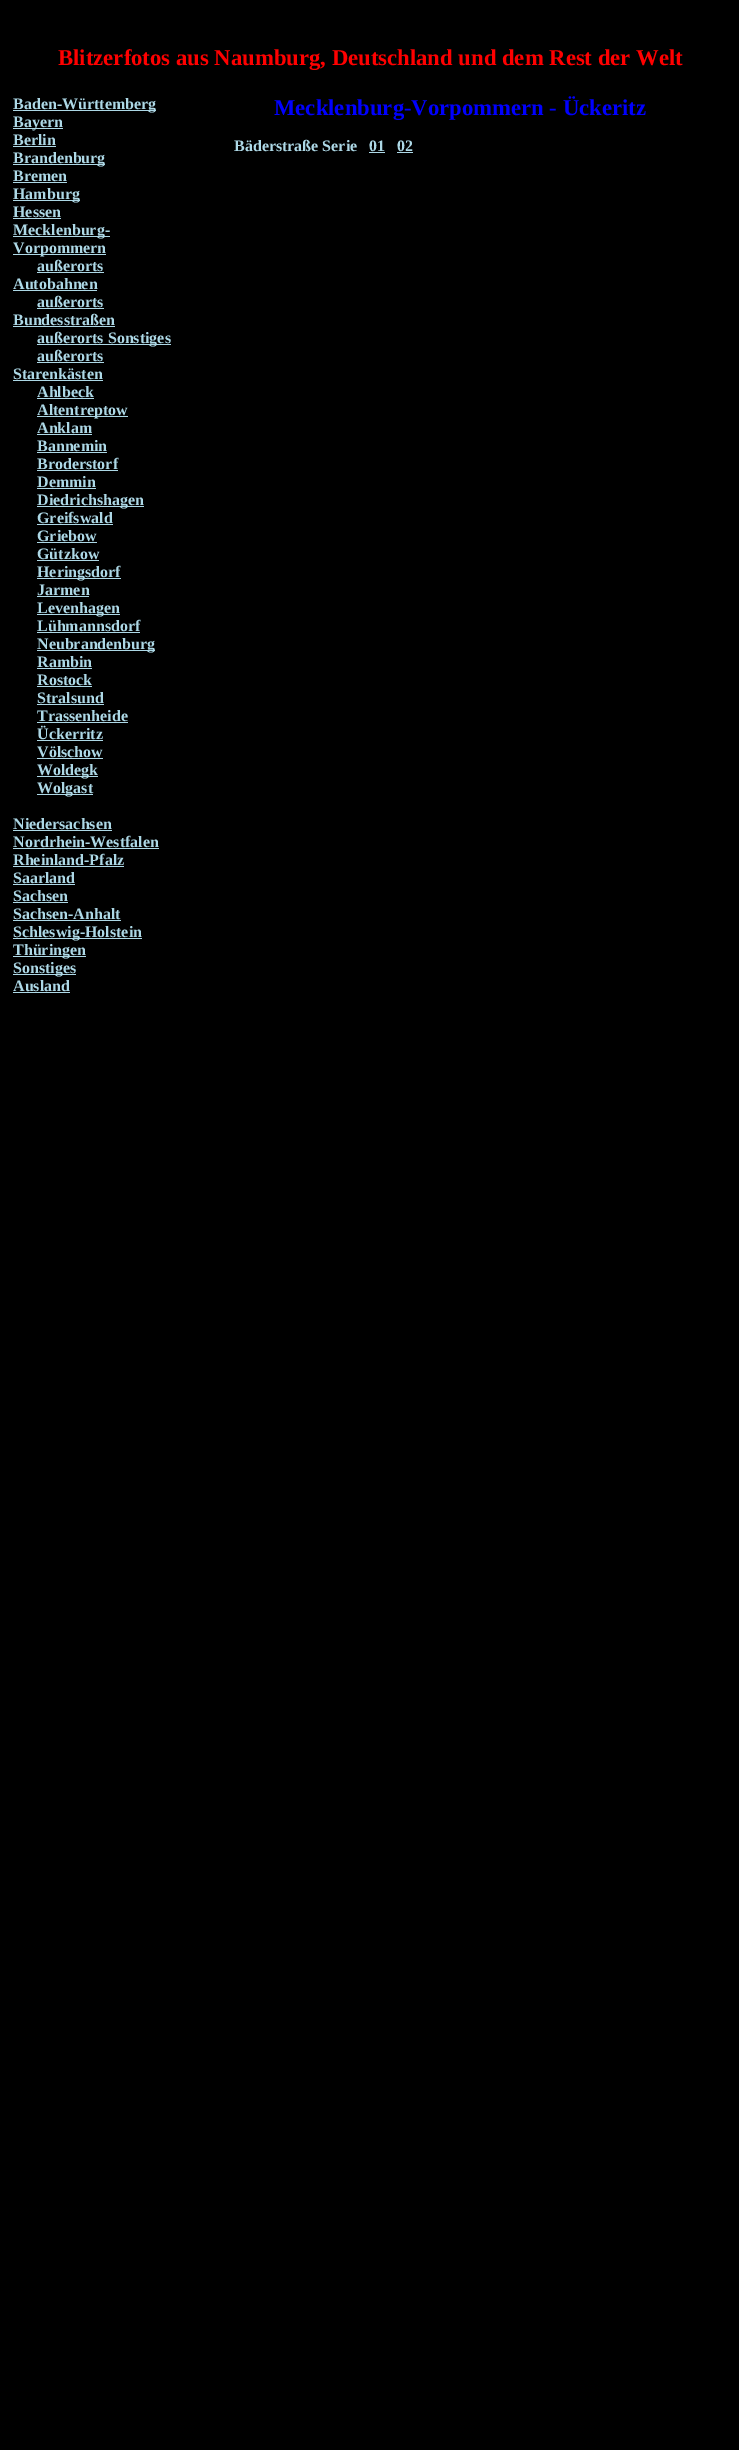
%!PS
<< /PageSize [739 2450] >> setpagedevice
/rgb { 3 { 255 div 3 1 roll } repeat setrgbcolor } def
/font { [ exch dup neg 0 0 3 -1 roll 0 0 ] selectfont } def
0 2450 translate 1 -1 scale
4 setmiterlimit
0 0 0 rgb
0 0 739 2450 rectfill
[
  [13 110 143 1 173 216 230]
  [13 128 50 1 173 216 230]
  [13 146 43 1 173 216 230]
  [13 164 92 1 173 216 230]
  [13 182 54 1 173 216 230]
  [13 200 67 1 173 216 230]
  [13 218 48 1 173 216 230]
  [13 236 97 1 173 216 230]
  [13 254 93 1 173 216 230]
  [37 272 67 1 173 216 230]
  [13 290 84 1 173 216 230]
  [37 308 67 1 173 216 230]
  [13 326 102 1 173 216 230]
  [37 344 134 1 173 216 230]
  [37 362 67 1 173 216 230]
  [13 380 90 1 173 216 230]
  [37 398 57 1 173 216 230]
  [37 416 91 1 173 216 230]
  [37 434 55 1 173 216 230]
  [37 452 70 1 173 216 230]
  [37 470 81 1 173 216 230]
  [37 488 59 1 173 216 230]
  [37 506 107 1 173 216 230]
  [37 524 76 1 173 216 230]
  [37 542 60 1 173 216 230]
  [37 560 62 1 173 216 230]
  [37 578 84 1 173 216 230]
  [37 596 52 1 173 216 230]
  [37 614 83 1 173 216 230]
  [37 632 103 1 173 216 230]
  [37 650 118 1 173 216 230]
  [37 668 55 1 173 216 230]
  [37 686 55 1 173 216 230]
  [37 704 67 1 173 216 230]
  [37 722 91 1 173 216 230]
  [37 740 66 1 173 216 230]
  [37 758 66 1 173 216 230]
  [37 776 61 1 173 216 230]
  [37 794 56 1 173 216 230]
  [13 830 99 1 173 216 230]
  [13 848 146 1 173 216 230]
  [13 866 111 1 173 216 230]
  [13 884 62 1 173 216 230]
  [13 902 55 1 173 216 230]
  [13 920 108 1 173 216 230]
  [13 938 129 1 173 216 230]
  [13 956 73 1 173 216 230]
  [13 974 63 1 173 216 230]
  [13 992 57 1 173 216 230]
  [369 152 16 1 173 216 230]
  [397 152 16 1 173 216 230]
] { aload pop rgb rectfill } forall
/LiberationSerif-Bold 22.7 font
255 0 0 rgb
58 65 moveto (Blitzerfotos aus Naumburg, Deutschland und dem Rest der Welt) show
/LiberationSerif-Bold 16 font
173 216 230 rgb
[
  [(Baden-Württemberg) 13 109]
  [(Bayern) 13 127]
  [(Berlin) 13 145]
  [(Brandenburg) 13 163]
  [(Bremen) 13 181]
  [(Hamburg) 13 199]
  [(Hessen) 13 217]
  [(Mecklenburg-) 13 235]
  [(Vorpommern) 13 253]
  [(außerorts) 37 271]
  [(Autobahnen) 13 289]
  [(außerorts) 37 307]
  [(Bundesstraßen) 13 325]
  [(außerorts Sonstiges) 37 343]
  [(außerorts) 37 361]
  [(Starenkästen) 13 379]
  [(Ahlbeck) 37 397]
  [(Altentreptow) 37 415]
  [(Anklam) 37 433]
  [(Bannemin) 37 451]
  [(Broderstorf) 37 469]
  [(Demmin) 37 487]
  [(Diedrichshagen) 37 505]
  [(Greifswald) 37 523]
  [(Griebow) 37 541]
  [(Gützkow) 37 559]
  [(Heringsdorf) 37 577]
  [(Jarmen) 37 595]
  [(Levenhagen) 37 613]
  [(Lühmannsdorf) 37 631]
  [(Neubrandenburg) 37 649]
  [(Rambin) 37 667]
  [(Rostock) 37 685]
  [(Stralsund) 37 703]
  [(Trassenheide) 37 721]
  [(Ückerritz) 37 739]
  [(Völschow) 37 757]
  [(Woldegk) 37 775]
  [(Wolgast) 37 793]
  [(Niedersachsen) 13 829]
  [(Nordrhein-Westfalen) 13 847]
  [(Rheinland-Pfalz) 13 865]
  [(Saarland) 13 883]
  [(Sachsen) 13 901]
  [(Sachsen-Anhalt) 13 919]
  [(Schleswig-Holstein) 13 937]
  [(Thüringen) 13 955]
  [(Sonstiges) 13 973]
  [(Ausland) 13 991]
] { aload pop moveto show } forall
/LiberationSerif-Bold 22.7 font
0 0 255 rgb
274 115 moveto (Mecklenburg-Vorpommern - Ückeritz) show
/LiberationSerif-Bold 16 font
173 216 230 rgb
[
  [(Bäderstraße Serie) 234 151]
  [(01) 369 151]
  [(02) 397 151]
] { aload pop moveto show } forall
showpage
